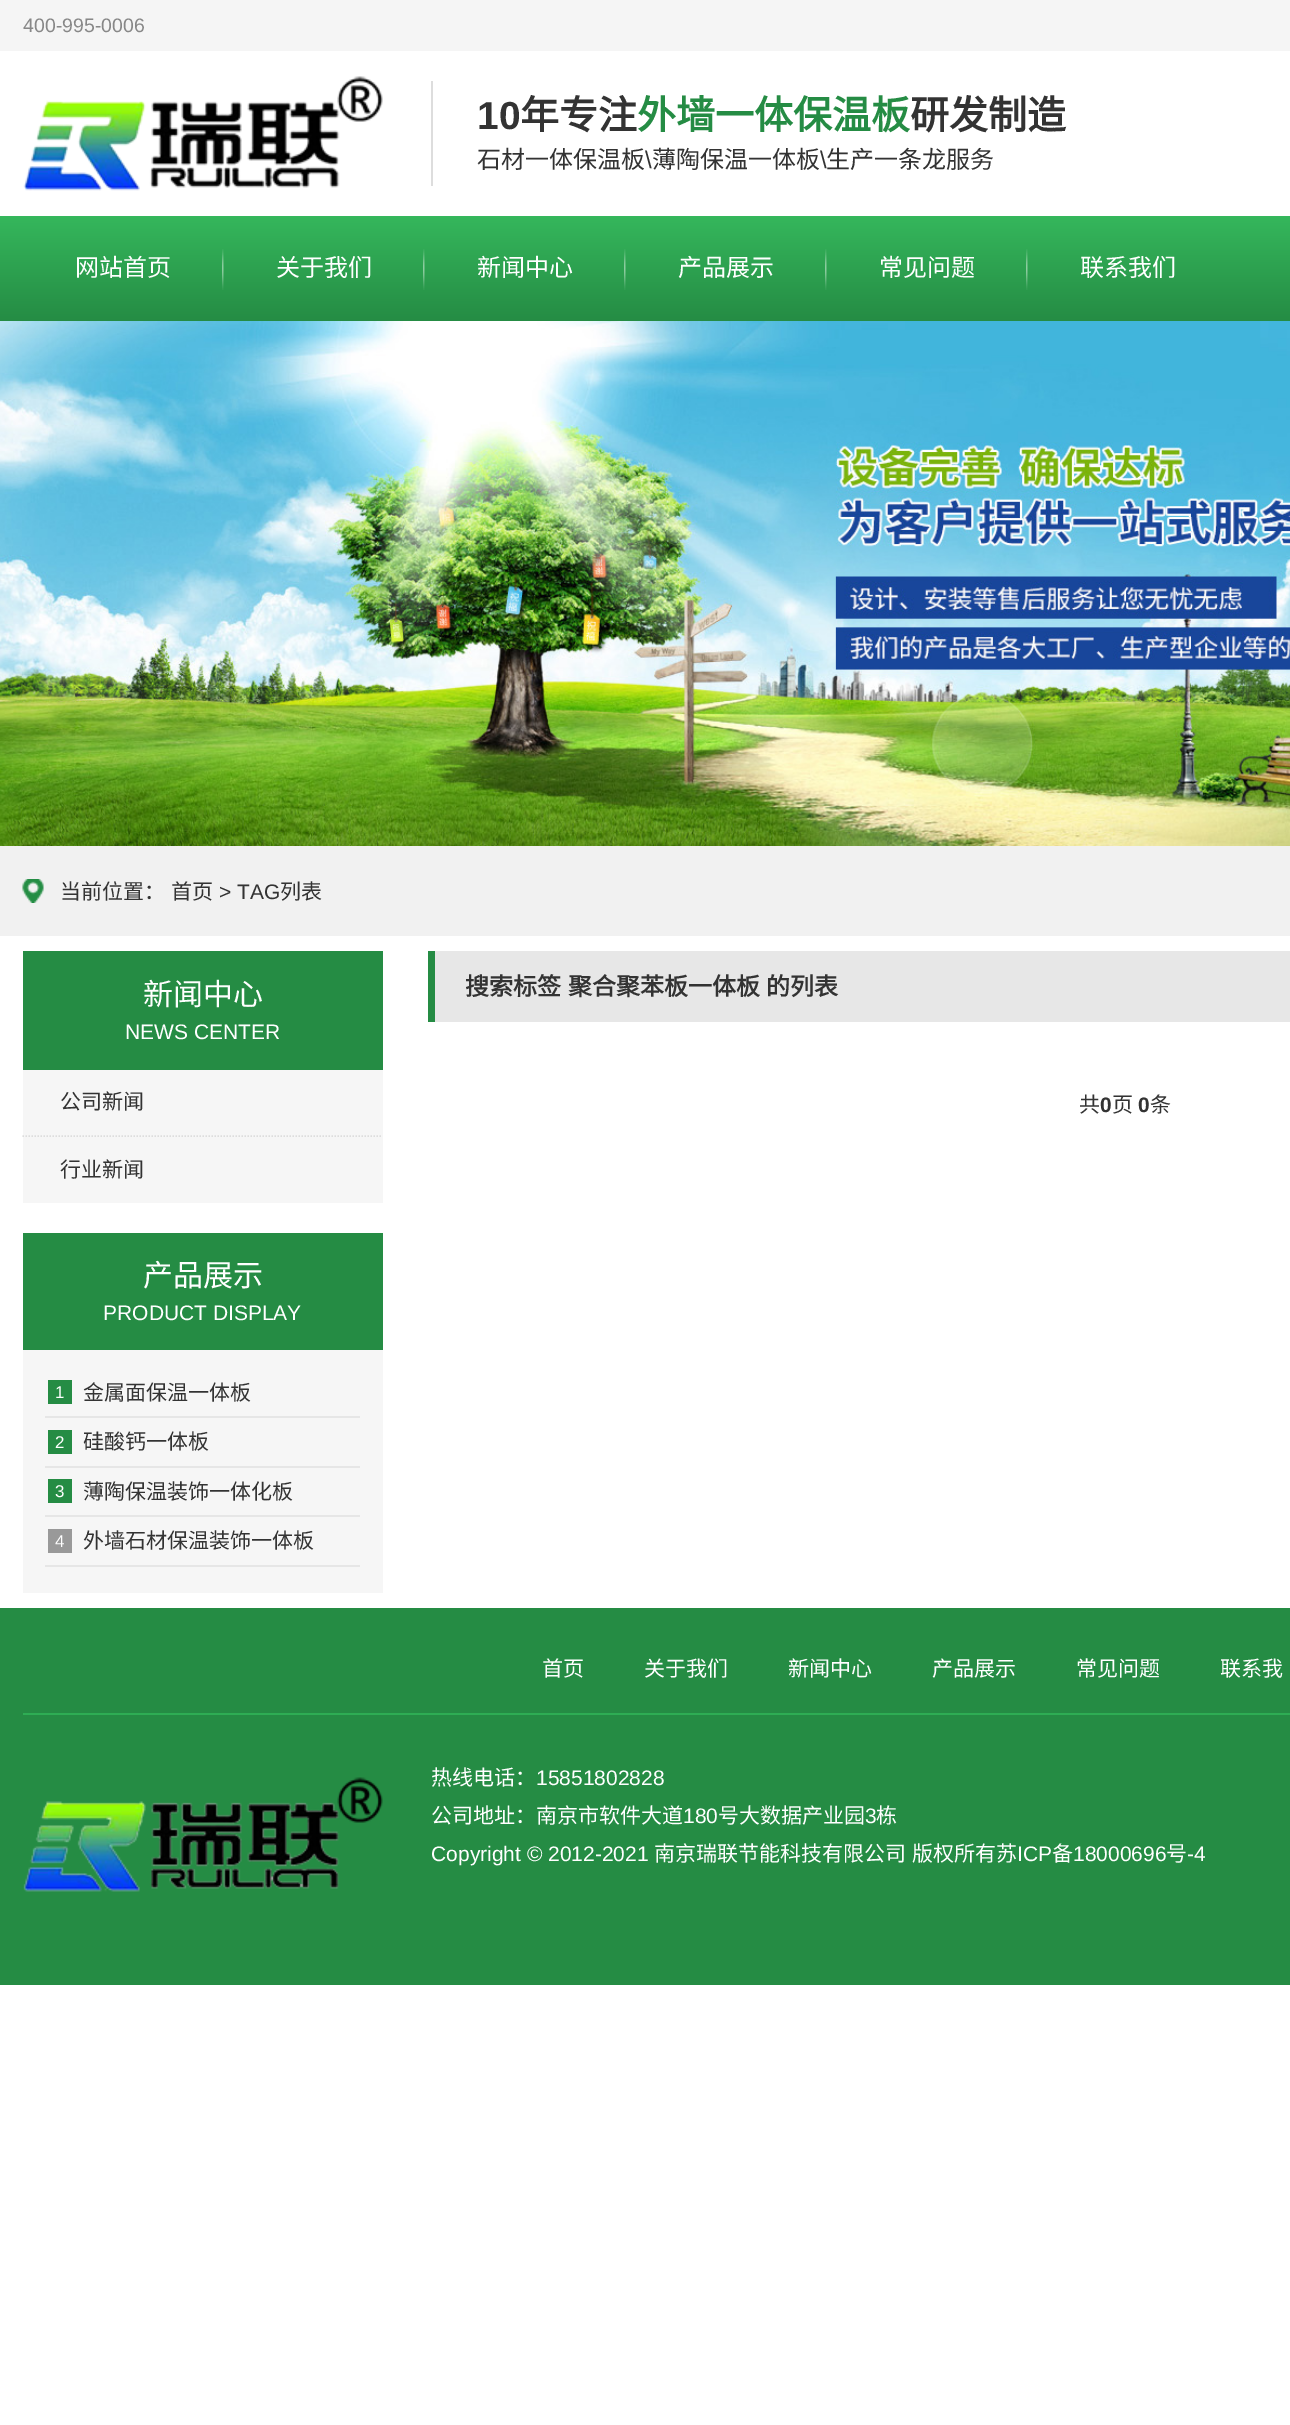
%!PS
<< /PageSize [1290 2425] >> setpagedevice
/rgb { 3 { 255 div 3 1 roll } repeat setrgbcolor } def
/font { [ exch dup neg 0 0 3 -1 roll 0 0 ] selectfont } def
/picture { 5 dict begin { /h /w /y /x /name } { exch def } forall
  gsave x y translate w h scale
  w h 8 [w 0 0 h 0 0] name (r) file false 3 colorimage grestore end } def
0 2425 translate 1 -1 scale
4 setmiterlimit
255 255 255 rgb
0 0 1290 2425 rectfill
245 245 245 rgb
0 0 1290 51 rectfill
(img/1.rgb) 23 76 360 115 picture
221 221 221 rgb
431 81 2 105 rectfill
gsave 0 216 moveto 1290 216 lineto 1290 321 lineto 0 321 lineto closepath clip newpath
<< /ShadingType 2 /ColorSpace /DeviceRGB /Coords [923 321 923 216] /Extend [true true] /Function << /FunctionType 2 /Domain [0 1] /C0 [0.145 0.549 0.267] /C1 [0.208 0.718 0.361] /N 1 >> >> shfill grestore
(img/2.rgb) 222 249 2 41 picture
(img/2.rgb) 423 249 2 41 picture
(img/2.rgb) 624 249 2 41 picture
(img/2.rgb) 825 249 2 41 picture
(img/2.rgb) 1026 249 2 41 picture
(img/3.rgb) 0 321 1290 525 picture
241 241 241 rgb
0 846 1290 90 rectfill
(img/4.rgb) 22 879 22 24 picture
246 246 246 rgb
23 1070 360 133 rectfill
37 140 68 rgb
23 951 360 119 rectfill
221 221 221 rgb
1.5 setlinewidth
[1.5 1.5] 0 setdash
22.5 1136 moveto 382.5 1136 lineto stroke
[
  [23 1350 360 243 246 246 246]
  [23 1233 360 117 37 140 68]
  [45 1416 315 2 230 230 230]
  [48 1380 24 24 37 140 68]
  [45 1466 315 2 230 230 230]
  [48 1430 24 24 37 140 68]
  [45 1515 315 2 230 230 230]
  [48 1479 24 24 37 140 68]
  [45 1565 315 2 230 230 230]
  [48 1529 24 24 153 153 153]
  [435 951 855 71 231 231 231]
  [428 951 7 71 37 140 68]
  [0 1608 1290 377 37 140 68]
  [23 1713 1267 2 46 173 84]
] { aload pop rgb rectfill } forall
(img/5.rgb) 23 1777 360 115 picture
/LiberationSans-Regular 19.5 font
136 136 136 rgb
23 32 moveto (400-995-0006) show
/LiberationSans-Bold 39 font
51 51 51 rgb
477 129 moveto (10) show
/NotoSansCJKSC-Bold 39 font
520 129 moveto (年专注) show
37 140 68 rgb
637 129 moveto (外墙一体保温板) show
51 51 51 rgb
910 129 moveto (研发制造) show
/NotoSansCJKSC-Regular 24 font
477 168 moveto (石材一体保温板) show
/LiberationSans-Regular 24 font
645 168 moveto (\\) show
/NotoSansCJKSC-Regular 24 font
652 168 moveto (薄陶保温一体板) show
/LiberationSans-Regular 24 font
820 168 moveto (\\) show
/NotoSansCJKSC-Regular 24 font
826 168 moveto (生产一条龙服务) show
255 255 255 rgb
[
  [(网站首页) 75 276]
  [(关于我们) 276 276]
  [(新闻中心) 477 276]
  [(产品展示) 678 276]
  [(常见问题) 879 276]
  [(联系我们) 1080 276]
] { aload pop moveto show } forall
/NotoSansCJKSC-Regular 21 font
51 51 51 rgb
60 899 moveto (当前位置：) show
171 899 moveto (首页) show
/LiberationSans-Regular 21 font
219 899 moveto (> TAG) show
/NotoSansCJKSC-Regular 21 font
280 899 moveto (列表) show
/NotoSansCJKSC-Regular 30 font
255 255 255 rgb
143 1005 moveto (新闻中心) show
/LiberationSans-Regular 21 font
125 1039 moveto (NEWS CENTER) show
/NotoSansCJKSC-Regular 21 font
51 51 51 rgb
60 1109 moveto (公司新闻) show
60 1177 moveto (行业新闻) show
/NotoSansCJKSC-Regular 30 font
255 255 255 rgb
143 1286 moveto (产品展示) show
/LiberationSans-Regular 21 font
103 1320 moveto (PRODUCT DISPLAY) show
/LiberationSans-Regular 17 font
55 1398 moveto (1) show
/NotoSansCJKSC-Regular 21 font
51 51 51 rgb
83 1400 moveto (金属面保温一体板) show
/LiberationSans-Regular 17 font
255 255 255 rgb
55 1448 moveto (2) show
/NotoSansCJKSC-Regular 21 font
51 51 51 rgb
83 1449 moveto (硅酸钙一体板) show
/LiberationSans-Regular 17 font
255 255 255 rgb
55 1497 moveto (3) show
/NotoSansCJKSC-Regular 21 font
51 51 51 rgb
83 1499 moveto (薄陶保温装饰一体化板) show
/LiberationSans-Regular 17 font
255 255 255 rgb
55 1547 moveto (4) show
/NotoSansCJKSC-Regular 21 font
51 51 51 rgb
83 1548 moveto (外墙石材保温装饰一体板) show
/NotoSansCJKSC-Bold 24 font
[
  [(搜索标签) 465 995]
  [(聚合聚苯板一体板) 568 995]
  [(的列表) 766 995]
] { aload pop moveto show } forall
/NotoSansCJKSC-Regular 21 font
1079 1112 moveto (共) show
/LiberationSans-Bold 21 font
1100 1112 moveto (0) show
/NotoSansCJKSC-Regular 21 font
1112 1112 moveto (页) show
/LiberationSans-Bold 21 font
1138 1112 moveto (0) show
/NotoSansCJKSC-Regular 21 font
1150 1112 moveto (条) show
255 255 255 rgb
[
  [(首页) 542 1676]
  [(关于我们) 644 1676]
  [(新闻中心) 788 1676]
  [(产品展示) 932 1676]
  [(常见问题) 1076 1676]
  [(联系我) 1220 1676]
  [(热线电话：) 431 1785]
] { aload pop moveto show } forall
/LiberationSans-Regular 21 font
536 1785 moveto (15851802828) show
/NotoSansCJKSC-Regular 21 font
431 1823 moveto (公司地址：南京市软件大道) show
/LiberationSans-Regular 21 font
683 1823 moveto (180) show
/NotoSansCJKSC-Regular 21 font
718 1823 moveto (号大数据产业园) show
/LiberationSans-Regular 21 font
865 1823 moveto (3) show
/NotoSansCJKSC-Regular 21 font
876 1823 moveto (栋) show
/LiberationSans-Regular 21 font
431 1861 moveto (Copyright © 2012-2021) show
/NotoSansCJKSC-Regular 21 font
654 1861 moveto (南京瑞联节能科技有限公司) show
912 1861 moveto (版权所有苏) show
/LiberationSans-Regular 21 font
1017 1861 moveto (ICP) show
/NotoSansCJKSC-Regular 21 font
1052 1861 moveto (备) show
/LiberationSans-Regular 21 font
1073 1861 moveto (18000696) show
/NotoSansCJKSC-Regular 21 font
1166 1861 moveto (号) show
/LiberationSans-Regular 21 font
1187 1861 moveto (-4) show
showpage
